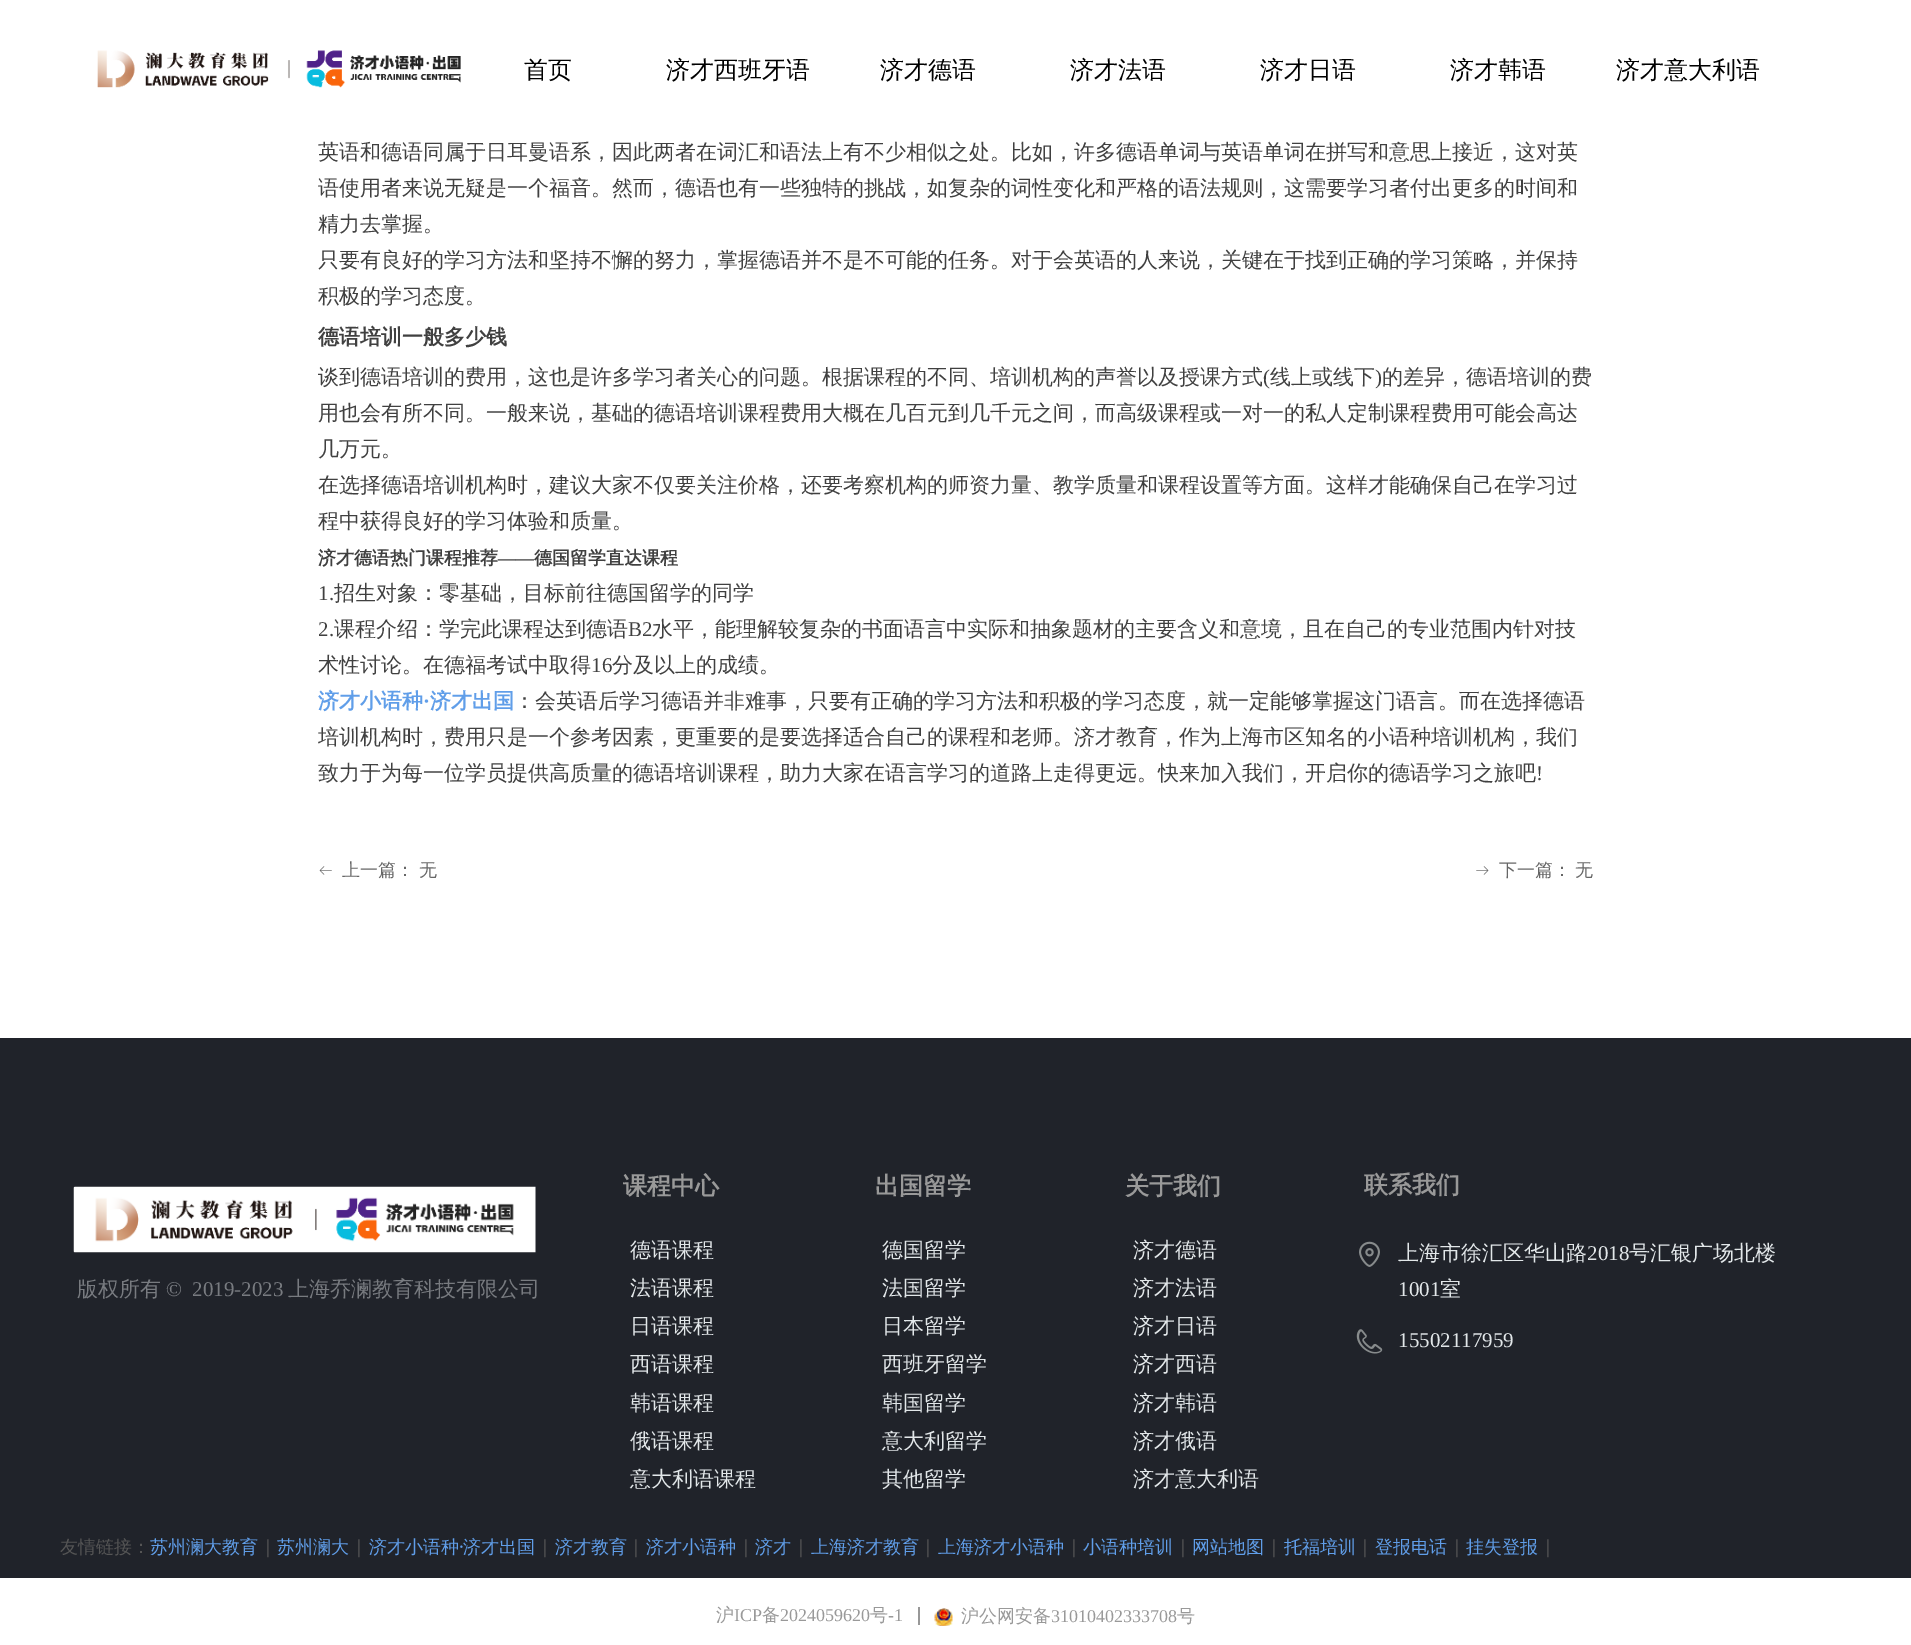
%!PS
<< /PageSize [1911 1645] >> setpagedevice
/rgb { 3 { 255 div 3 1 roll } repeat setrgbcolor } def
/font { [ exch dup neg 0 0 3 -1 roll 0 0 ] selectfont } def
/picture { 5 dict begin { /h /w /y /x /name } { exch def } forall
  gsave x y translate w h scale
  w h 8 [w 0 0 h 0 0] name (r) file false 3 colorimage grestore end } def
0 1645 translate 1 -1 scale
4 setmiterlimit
255 255 255 rgb
0 0 1911 1645 rectfill
(img/1.rgb) 97 50 364 38 picture
(img/2.rgb) 319 866 13 9 picture
(img/3.rgb) 1476 866 13 9 picture
32 35 42 rgb
0 1038 1911 540 rectfill
(img/4.rgb) 73 1186 463 67 picture
(img/5.rgb) 1359 1241 21 26 picture
(img/6.rgb) 1356 1329 27 25 picture
152 152 152 rgb
918 1607 2 18 rectfill
(img/7.rgb) 934 1608 19 18 picture
/WenQuanYiZenHei-Medium 24 font
0 0 0 rgb
[
  [(首页) 524 78]
  [(济才西班牙语) 666 78]
  [(济才德语) 880 78]
  [(济才法语) 1070 78]
  [(济才日语) 1260 78]
  [(济才韩语) 1450 78]
  [(济才意大利语) 1616 78]
] { aload pop moveto show } forall
/WenQuanYiZenHei-Medium 21 font
64 64 64 rgb
[
  [(英语和德语同属于日耳曼语系，因此两者在词汇和语法上有不少相似之处。比如，许多德语单词与英语单词在拼写和意思上接近，这对英) 318 159]
  [(语使用者来说无疑是一个福音。然而，德语也有一些独特的挑战，如复杂的词性变化和严格的语法规则，这需要学习者付出更多的时间和) 318 195]
  [(精力去掌握。) 318 231]
  [(只要有良好的学习方法和坚持不懈的努力，掌握德语并不是不可能的任务。对于会英语的人来说，关键在于找到正确的学习策略，并保持) 318 267]
  [(积极的学习态度。) 318 303]
] { aload pop moveto show } forall
/WenQuanYiZenHei-Bold 21 font
318 344 moveto (德语培训一般多少钱) show
/WenQuanYiZenHei-Medium 21 font
318 384 moveto (谈到德语培训的费用，这也是许多学习者关心的问题。根据课程的不同、培训机构的声誉以及授课方式) show
/LiberationSerif-Regular 21 font
1263 384 moveto (\() show
/WenQuanYiZenHei-Medium 21 font
1270 384 moveto (线上或线下) show
/LiberationSerif-Regular 21 font
1375 384 moveto (\)) show
/WenQuanYiZenHei-Medium 21 font
[
  [(的差异，德语培训的费) 1382 384]
  [(用也会有所不同。一般来说，基础的德语培训课程费用大概在几百元到几千元之间，而高级课程或一对一的私人定制课程费用可能会高达) 318 420]
  [(几万元。) 318 456]
  [(在选择德语培训机构时，建议大家不仅要关注价格，还要考察机构的师资力量、教学质量和课程设置等方面。这样才能确保自己在学习过) 318 492]
  [(程中获得良好的学习体验和质量。) 318 528]
] { aload pop moveto show } forall
/WenQuanYiZenHei-Bold 18 font
318 564 moveto (济才德语热门课程推荐) show
/LiberationSerif-Bold 18 font
498 564 moveto (——) show
/WenQuanYiZenHei-Bold 18 font
534 564 moveto (德国留学直达课程) show
/LiberationSerif-Regular 21 font
318 600 moveto (1.) show
/WenQuanYiZenHei-Medium 21 font
334 600 moveto (招生对象：零基础，目标前往德国留学的同学) show
/LiberationSerif-Regular 21 font
318 636 moveto (2.) show
/WenQuanYiZenHei-Medium 21 font
334 636 moveto (课程介绍：学完此课程达到德语) show
/LiberationSerif-Regular 21 font
628 636 moveto (B2) show
/WenQuanYiZenHei-Medium 21 font
652 636 moveto (水平，能理解较复杂的书面语言中实际和抽象题材的主要含义和意境，且在自己的专业范围内针对技) show
318 672 moveto (术性讨论。在德福考试中取得) show
/LiberationSerif-Regular 21 font
591 672 moveto (16) show
/WenQuanYiZenHei-Medium 21 font
612 672 moveto (分及以上的成绩。) show
/WenQuanYiZenHei-Bold 21 font
96 158 233 rgb
318 708 moveto (济才小语种) show
/LiberationSerif-Bold 21 font
423 708 moveto (·) show
/WenQuanYiZenHei-Bold 21 font
430 708 moveto (济才出国) show
/WenQuanYiZenHei-Medium 21 font
64 64 64 rgb
[
  [(：会英语后学习德语并非难事，只要有正确的学习方法和积极的学习态度，就一定能够掌握这门语言。而在选择德语) 514 708]
  [(培训机构时，费用只是一个参考因素，更重要的是要选择适合自己的课程和老师。济才教育，作为上海市区知名的小语种培训机构，我们) 318 744]
  [(致力于为每一位学员提供高质量的德语培训课程，助力大家在语言学习的道路上走得更远。快来加入我们，开启你的德语学习之旅吧) 318 780]
] { aload pop moveto show } forall
/LiberationSerif-Regular 21 font
1536 780 moveto (!) show
/WenQuanYiZenHei-Medium 18 font
102 102 102 rgb
[
  [(上一篇：) 342 876]
  [(无) 419 876]
  [(下一篇：) 1499 876]
  [(无) 1575 876]
] { aload pop moveto show } forall
/WenQuanYiZenHei-Medium 21 font
120 123 128 rgb
77 1296 moveto (版权所有) show
/LiberationSerif-Regular 21 font
166 1296 moveto (©  2019-2023) show
/WenQuanYiZenHei-Medium 21 font
288 1296 moveto (上海乔澜教育科技有限公司) show
/WenQuanYiZenHei-Bold 24 font
153 153 153 rgb
623 1194 moveto (课程中心) show
/WenQuanYiZenHei-Medium 21 font
226 231 233 rgb
[
  [(德语课程) 630 1257]
  [(法语课程) 630 1295]
  [(日语课程) 630 1333]
  [(西语课程) 630 1371]
  [(韩语课程) 630 1410]
  [(俄语课程) 630 1448]
  [(意大利语课程) 630 1486]
] { aload pop moveto show } forall
/WenQuanYiZenHei-Bold 24 font
153 153 153 rgb
875 1194 moveto (出国留学) show
/WenQuanYiZenHei-Medium 21 font
226 231 233 rgb
[
  [(德国留学) 882 1257]
  [(法国留学) 882 1295]
  [(日本留学) 882 1333]
  [(西班牙留学) 882 1371]
  [(韩国留学) 882 1410]
  [(意大利留学) 882 1448]
  [(其他留学) 882 1486]
] { aload pop moveto show } forall
/WenQuanYiZenHei-Bold 24 font
153 153 153 rgb
1125 1194 moveto (关于我们) show
/WenQuanYiZenHei-Medium 21 font
226 231 233 rgb
[
  [(济才德语) 1133 1257]
  [(济才法语) 1133 1295]
  [(济才日语) 1133 1333]
  [(济才西语) 1133 1371]
  [(济才韩语) 1133 1410]
  [(济才俄语) 1133 1448]
  [(济才意大利语) 1133 1486]
] { aload pop moveto show } forall
gsave
1364 1172 435 28 rectclip
/WenQuanYiZenHei-Bold 24 font
153 153 153 rgb
1364 1193 moveto (联系我们) show
grestore
1398 1260 moveto (上海市徐汇区华山路) show
/LiberationSerif-Regular 21 font
1587 1260 moveto (2018) show
/WenQuanYiZenHei-Medium 21 font
1629 1260 moveto (号汇银广场北楼) show
/LiberationSerif-Regular 21 font
1398 1296 moveto (1001) show
/WenQuanYiZenHei-Medium 21 font
1440 1296 moveto (室) show
/LiberationSerif-Regular 21 font
1398 1347 moveto (15502117959) show
/WenQuanYiZenHei-Medium 18 font
85 85 85 rgb
60 1553 moveto (友情链接：) show
96 158 233 rgb
150 1553 moveto (苏州澜大教育) show
/NotoSans-Regular 18 font
85 85 85 rgb
263 1553 moveto (|) show
/WenQuanYiZenHei-Medium 18 font
96 158 233 rgb
277 1553 moveto (苏州澜大) show
/NotoSans-Regular 18 font
85 85 85 rgb
354 1553 moveto (|) show
/WenQuanYiZenHei-Medium 18 font
96 158 233 rgb
369 1553 moveto (济才小语种) show
/NotoSans-Regular 18 font
459 1553 moveto (·) show
/WenQuanYiZenHei-Medium 18 font
463 1553 moveto (济才出国) show
/NotoSans-Regular 18 font
85 85 85 rgb
540 1553 moveto (|) show
/WenQuanYiZenHei-Medium 18 font
96 158 233 rgb
555 1553 moveto (济才教育) show
/NotoSans-Regular 18 font
85 85 85 rgb
631 1553 moveto (|) show
/WenQuanYiZenHei-Medium 18 font
96 158 233 rgb
646 1553 moveto (济才小语种) show
/NotoSans-Regular 18 font
85 85 85 rgb
741 1553 moveto (|) show
/WenQuanYiZenHei-Medium 18 font
96 158 233 rgb
755 1553 moveto (济才) show
/NotoSans-Regular 18 font
85 85 85 rgb
796 1553 moveto (|) show
/WenQuanYiZenHei-Medium 18 font
96 158 233 rgb
811 1553 moveto (上海济才教育) show
/NotoSans-Regular 18 font
85 85 85 rgb
923 1553 moveto (|) show
/WenQuanYiZenHei-Medium 18 font
96 158 233 rgb
938 1553 moveto (上海济才小语种) show
/NotoSans-Regular 18 font
85 85 85 rgb
1069 1553 moveto (|) show
/WenQuanYiZenHei-Medium 18 font
96 158 233 rgb
1083 1553 moveto (小语种培训) show
/NotoSans-Regular 18 font
85 85 85 rgb
1178 1553 moveto (|) show
/WenQuanYiZenHei-Medium 18 font
96 158 233 rgb
1192 1553 moveto (网站地图) show
/NotoSans-Regular 18 font
85 85 85 rgb
1269 1553 moveto (|) show
/WenQuanYiZenHei-Medium 18 font
96 158 233 rgb
1284 1553 moveto (托福培训) show
/NotoSans-Regular 18 font
85 85 85 rgb
1360 1553 moveto (|) show
/WenQuanYiZenHei-Medium 18 font
96 158 233 rgb
1375 1553 moveto (登报电话) show
/NotoSans-Regular 18 font
85 85 85 rgb
1452 1553 moveto (|) show
/WenQuanYiZenHei-Medium 18 font
96 158 233 rgb
1466 1553 moveto (挂失登报) show
/NotoSans-Regular 18 font
85 85 85 rgb
1543 1553 moveto (|) show
/WenQuanYiZenHei-Medium 18 font
153 153 153 rgb
716 1621 moveto (沪) show
/LiberationSerif-Regular 18 font
734 1621 moveto (ICP) show
/WenQuanYiZenHei-Medium 18 font
762 1621 moveto (备) show
/LiberationSerif-Regular 18 font
780 1621 moveto (2024059620) show
/WenQuanYiZenHei-Medium 18 font
870 1621 moveto (号) show
/LiberationSerif-Regular 18 font
888 1621 moveto (-1) show
/WenQuanYiZenHei-Medium 18 font
961 1622 moveto (沪公网安备) show
/LiberationSerif-Regular 18 font
1051 1622 moveto (31010402333708) show
/WenQuanYiZenHei-Medium 18 font
1177 1622 moveto (号) show
showpage
